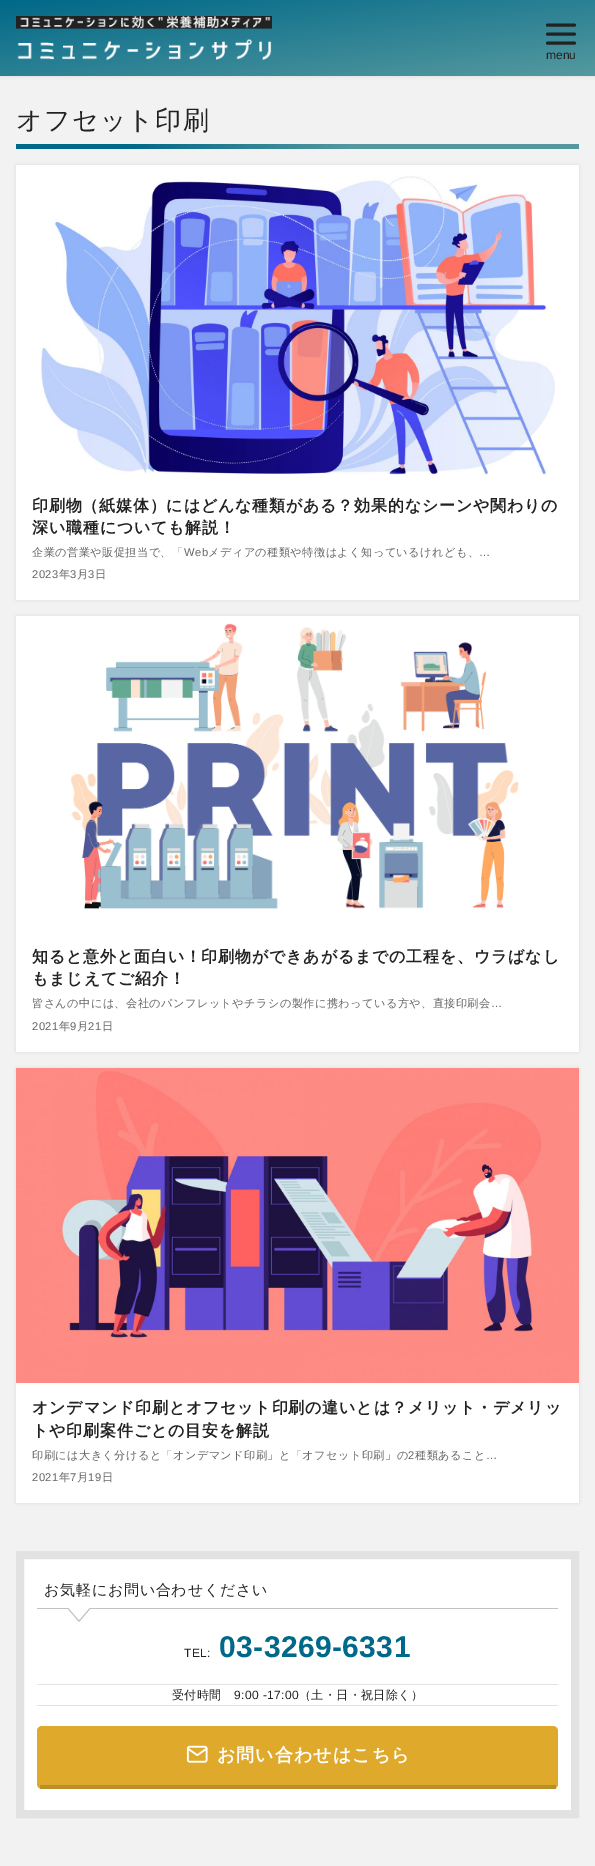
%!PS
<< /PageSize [595 1866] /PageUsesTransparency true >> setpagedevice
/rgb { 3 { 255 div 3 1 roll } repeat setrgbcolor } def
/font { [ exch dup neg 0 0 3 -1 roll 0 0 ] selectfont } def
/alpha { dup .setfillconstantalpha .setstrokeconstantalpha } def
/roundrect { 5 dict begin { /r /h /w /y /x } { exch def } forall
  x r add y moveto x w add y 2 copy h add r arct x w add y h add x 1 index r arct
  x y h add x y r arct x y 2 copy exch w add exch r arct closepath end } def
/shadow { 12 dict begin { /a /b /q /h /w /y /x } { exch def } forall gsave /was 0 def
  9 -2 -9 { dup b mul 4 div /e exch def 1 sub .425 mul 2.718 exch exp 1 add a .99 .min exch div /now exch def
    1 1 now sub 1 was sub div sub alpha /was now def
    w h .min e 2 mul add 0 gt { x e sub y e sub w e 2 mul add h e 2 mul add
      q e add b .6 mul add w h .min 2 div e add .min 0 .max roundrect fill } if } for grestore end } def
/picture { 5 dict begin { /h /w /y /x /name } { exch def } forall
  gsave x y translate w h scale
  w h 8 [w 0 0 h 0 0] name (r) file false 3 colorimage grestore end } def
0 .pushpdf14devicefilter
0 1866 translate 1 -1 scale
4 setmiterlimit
242 242 242 rgb
0 0 595 1866 rectfill
0 0 0 rgb
0 0 595 76 0 2 0.1 shadow
gsave 0 0 moveto 595 0 lineto 595 76 lineto 0 76 lineto closepath clip newpath
<< /ShadingType 2 /ColorSpace /DeviceRGB /Coords [288 -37 307 113] /Extend [true true] /Function << /FunctionType 2 /Domain [0 1] /C0 [0 0.408 0.533] /C1 [0.333 0.6 0.624] /N 1 >> >> shfill grestore
(img/1.rgb) 16 16 256 44 picture
34 34 34 rgb
3 setlinewidth
1 setlinecap
1 setlinejoin
547.5 34 moveto 574.5 34 lineto 547.5 25 moveto 574.5 25 lineto 547.5 43 moveto 574.5 43 lineto stroke
gsave 16 144 moveto 579 144 lineto 579 149 lineto 16 149 lineto closepath clip newpath
<< /ShadingType 2 /ColorSpace /DeviceRGB /Coords [16 147 579 146] /Extend [true true] /Function << /FunctionType 3 /Domain [0 1] /Functions [<< /FunctionType 2 /Domain [0 1] /C0 [0 0.408 0.533] /C1 [0 0.408 0.533] /N 1 >> << /FunctionType 2 /Domain [0 1] /C0 [0 0.408 0.533] /C1 [0.333 0.6 0.624] /N 1 >> << /FunctionType 2 /Domain [0 1] /C0 [0.333 0.6 0.624] /C1 [0.333 0.6 0.624] /N 1 >>] /Bounds [0.2 0.6] /Encode [0 1 0 1 0 1] >> >> shfill grestore
0 0 0 rgb
16 165 563 435 0 1.5 0.08 shadow
255 255 255 rgb
16 165 563 435 rectfill
(img/2.rgb) 40 176 515 299 picture
0 0 0 rgb
16 616 563 436 0 1.5 0.08 shadow
255 255 255 rgb
16 616 563 436 rectfill
(img/3.rgb) 70 623 449 287 picture
0 0 0 rgb
16 1068 563 435 0 1.5 0.08 shadow
255 255 255 rgb
16 1383 563 120 rectfill
(img/4.rgb) 16 1068 563 315 picture
20 1555 moveto 575 1555 lineto 575 1814 lineto 20 1814 lineto closepath gsave fill grestore
226 226 226 rgb
8 setlinewidth
0 setlinecap
0 setlinejoin
stroke
189 195 199 rgb
37 1608 521 1 rectfill
67 1608 moveto 91 1608 lineto 79 1622 lineto closepath fill
255 255 255 rgb
67 1606 moveto 91 1606 lineto 79 1620 lineto closepath fill
226 226 226 rgb
37 1684 521 1 rectfill
37 1705 521 1 rectfill
223 170 44 rgb
37 1726 521 63 5 roundrect fill
187 143 39 rgb
40 1785 516 4 rectfill
(img/5.rgb) 186 1745 22 18 picture
/LiberationSans-Regular 12 font
34 34 34 rgb
546 59 moveto (menu) show
/WenQuanYiZenHei-Medium 26 font
16 129 moveto 1.25 0 (オフセット印刷) ashow
/WenQuanYiZenHei-Bold 16 font
32 511 moveto 0.8 0 (印刷物（紙媒体）にはどんな種類がある？効果的なシーンや関わりの) ashow
32 533 moveto 0.8 0 (深い職種についても解説！) ashow
/WenQuanYiZenHei-Medium 11.2 font
101 101 101 rgb
32 556 moveto 0.4 0 (企業の営業や販促担当で、「) ashow
/LiberationSans-Regular 11.2 font
184 556 moveto 0.4 0 (Web) ashow
/WenQuanYiZenHei-Medium 11.2 font
208 556 moveto 0.4 0 (メディアの種類や特徴はよく知っているけれども、) ashow
/LiberationSans-Regular 11.2 font
479 556 moveto 0.4 0 (…) ashow
32 578 moveto 0.4 0 (2023) ashow
/WenQuanYiZenHei-Medium 11.2 font
59 578 moveto 0.4 0 (年) ashow
/LiberationSans-Regular 11.2 font
70 578 moveto 0.4 0 (3) ashow
/WenQuanYiZenHei-Medium 11.2 font
77 578 moveto 0.4 0 (月) ashow
/LiberationSans-Regular 11.2 font
88 578 moveto 0.4 0 (3) ashow
/WenQuanYiZenHei-Medium 11.2 font
95 578 moveto 0.4 0 (日) ashow
/WenQuanYiZenHei-Bold 16 font
34 34 34 rgb
32 962 moveto 0.8 0 (知ると意外と面白い！印刷物ができあがるまでの工程を、ウラばなし) ashow
32 984 moveto 0.8 0 (もまじえてご紹介！) ashow
/WenQuanYiZenHei-Medium 11.2 font
101 101 101 rgb
32 1007 moveto 0.4 0 (皆さんの中には、会社のパンフレットやチラシの製作に携わっている方や、直接印刷会) ashow
/LiberationSans-Regular 11.2 font
491 1007 moveto 0.4 0 (…) ashow
32 1030 moveto 0.4 0 (2021) ashow
/WenQuanYiZenHei-Medium 11.2 font
59 1030 moveto 0.4 0 (年) ashow
/LiberationSans-Regular 11.2 font
70 1030 moveto 0.4 0 (9) ashow
/WenQuanYiZenHei-Medium 11.2 font
77 1030 moveto 0.4 0 (月) ashow
/LiberationSans-Regular 11.2 font
88 1030 moveto 0.4 0 (21) ashow
/WenQuanYiZenHei-Medium 11.2 font
102 1030 moveto 0.4 0 (日) ashow
/WenQuanYiZenHei-Bold 16 font
34 34 34 rgb
32 1413 moveto 0.8 0 (オンデマンド印刷とオフセット印刷の違いとは？メリット・デメリッ) ashow
32 1436 moveto 0.8 0 (トや印刷案件ごとの目安を解説) ashow
/WenQuanYiZenHei-Medium 11.2 font
101 101 101 rgb
32 1459 moveto 0.4 0 (印刷には大きく分けると「オンデマンド印刷」と「オフセット印刷」の) ashow
/LiberationSans-Regular 11.2 font
408 1459 moveto 0.4 0 (2) ashow
/WenQuanYiZenHei-Medium 11.2 font
415 1459 moveto 0.4 0 (種類あること) ashow
/LiberationSans-Regular 11.2 font
486 1459 moveto 0.4 0 (…) ashow
32 1481 moveto 0.4 0 (2021) ashow
/WenQuanYiZenHei-Medium 11.2 font
59 1481 moveto 0.4 0 (年) ashow
/LiberationSans-Regular 11.2 font
70 1481 moveto 0.4 0 (7) ashow
/WenQuanYiZenHei-Medium 11.2 font
77 1481 moveto 0.4 0 (月) ashow
/LiberationSans-Regular 11.2 font
88 1481 moveto 0.4 0 (19) ashow
/WenQuanYiZenHei-Medium 11.2 font
102 1481 moveto 0.4 0 (日) ashow
/WenQuanYiZenHei-Medium 15 font
34 34 34 rgb
44 1595 moveto 0.75 0 (お気軽にお問い合わせください) ashow
/LiberationSans-Regular 12 font
184 1657 moveto 0.4 0 (TEL:) ashow
/LiberationSans-Bold 30 font
0 104 136 rgb
219 1657 moveto 0.4 0 (03-3269-6331) ashow
/WenQuanYiZenHei-Medium 12 font
34 34 34 rgb
172 1699 moveto 0.4 0 (受付時間) ashow
/LiberationSans-Regular 12 font
234 1699 moveto 0.4 0 (9:00 -17:00) ashow
/WenQuanYiZenHei-Medium 12 font
299 1699 moveto 0.4 0 (（土・日・祝日除く）) ashow
/WenQuanYiZenHei-Bold 18 font
255 255 255 rgb
217 1761 moveto 1 0 (お問い合わせはこちら) ashow
.poppdf14devicefilter showpage
